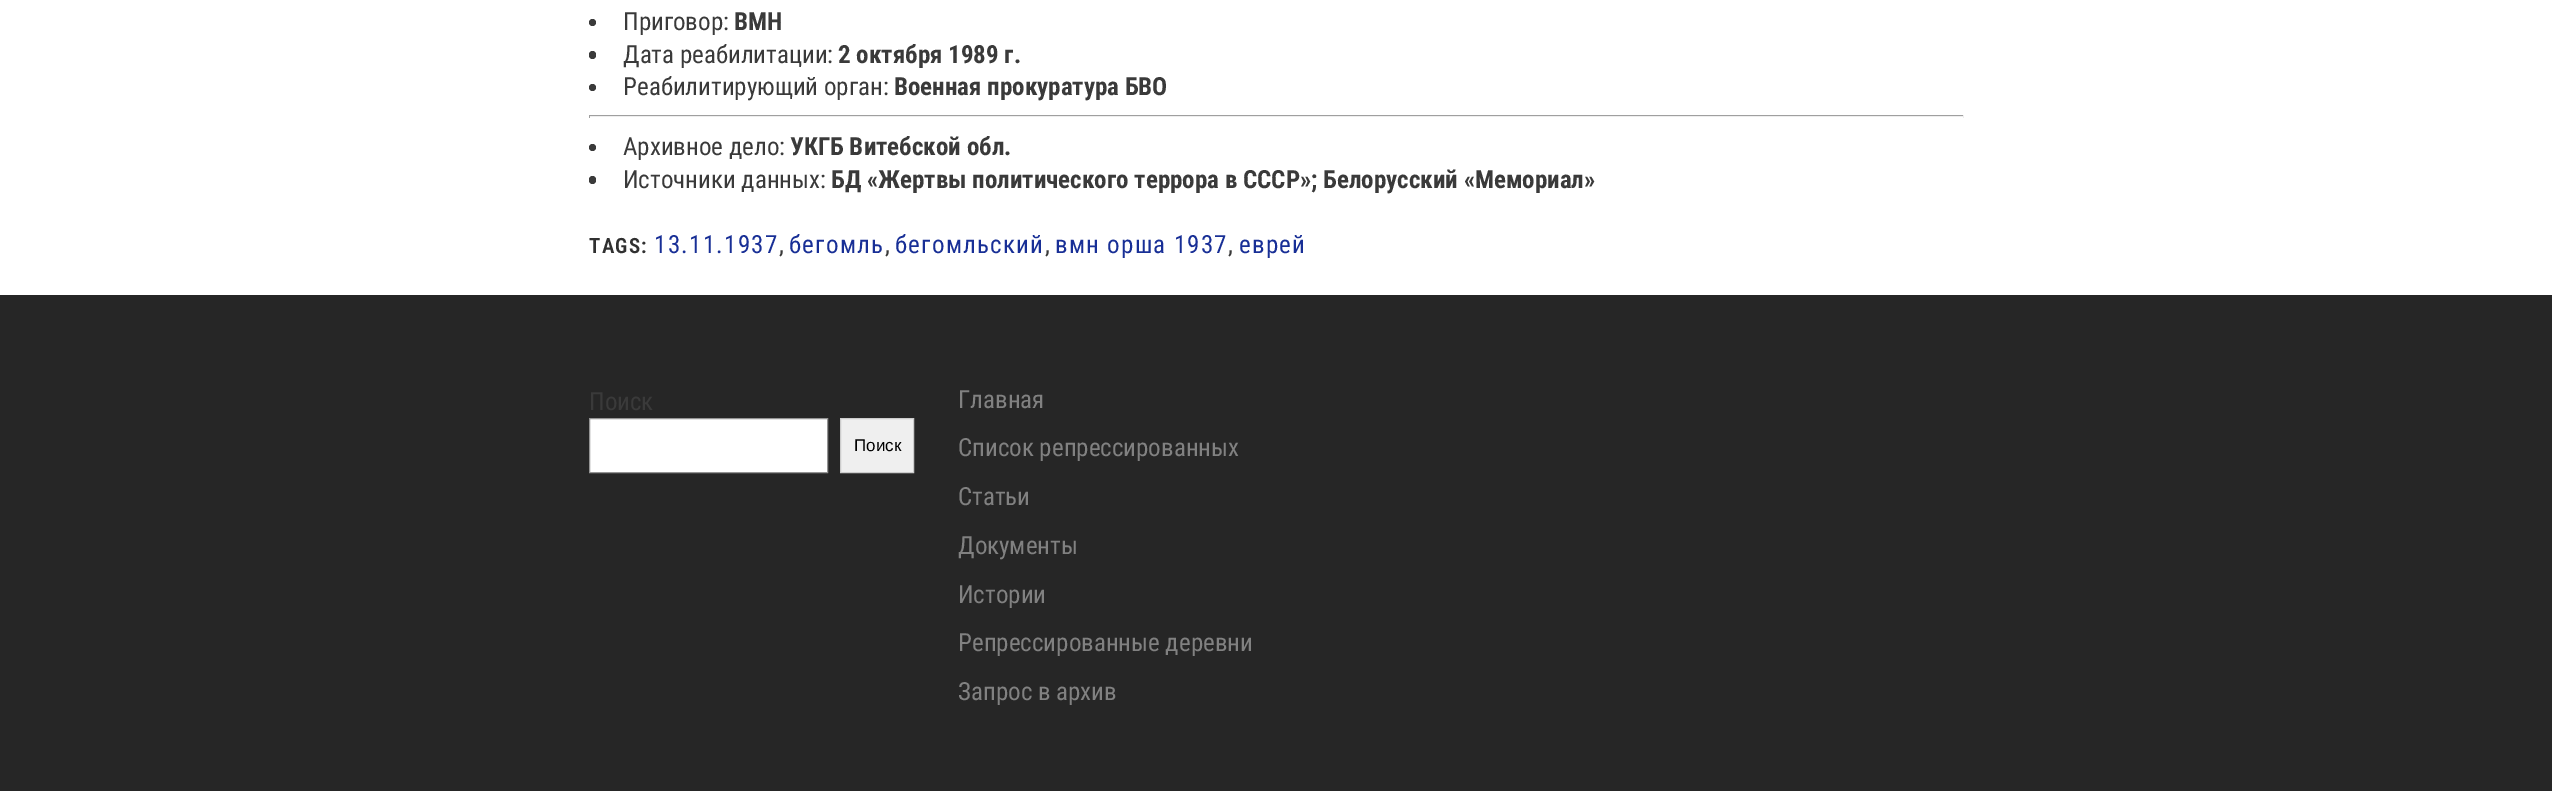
%!PS
<< /PageSize [2552 791] >> setpagedevice
/rgb { 3 { 255 div 3 1 roll } repeat setrgbcolor } def
/font { [ exch dup neg 0 0 3 -1 roll 0 0 ] selectfont } def
/circle { newpath 0 360 arc closepath } def
/roundrect { 5 dict begin { /r /h /w /y /x } { exch def } forall
  x r add y moveto x w add y 2 copy h add r arct x w add y h add x 1 index r arct
  x y h add x y r arct x y 2 copy exch w add exch r arct closepath end } def
0 791 translate 1 -1 scale
4 setmiterlimit
255 255 255 rgb
0 0 2552 791 rectfill
58 58 58 rgb
592.5 22.5 3.5 circle fill
589 51 7 8 3.5 roundrect fill
592.5 87.5 3.5 circle fill
[
  [589 115 1375 1 159 159 159]
  [1963 115 1 3 238 238 238]
  [589 116 1375 1 238 238 238]
  [589 115 1 3 159 159 159]
] { aload pop rgb rectfill } forall
58 58 58 rgb
592.5 147.5 3.5 circle fill
589 176 7 8 3.5 roundrect fill
38 38 38 rgb
0 295 2552 496 rectfill
255 255 255 rgb
589.5 418.5 moveto 827.5 418.5 lineto 827.5 472.5 lineto 589.5 472.5 lineto closepath gsave fill grestore
148 148 148 rgb
stroke
239 239 239 rgb
840.5 418.5 moveto 913.5 418.5 lineto 913.5 472.5 lineto 840.5 472.5 lineto closepath gsave fill grestore
204 204 204 rgb
stroke
/RobotoCondensed-Regular 25 font
58 58 58 rgb
623 30 moveto (Приговор:) show
/RobotoCondensed-Bold 25 font
734 30 moveto (ВМН) show
/RobotoCondensed-Regular 25 font
623 63 moveto (Дата реабилитации:) show
/RobotoCondensed-Bold 25 font
838 63 moveto (2 октября 1989 г.) show
/RobotoCondensed-Regular 25 font
623 95 moveto (Реабилитирующий орган:) show
/RobotoCondensed-Bold 25 font
894 95 moveto (Военная прокуратура БВО) show
/RobotoCondensed-Regular 25 font
623 155 moveto (Архивное дело:) show
/RobotoCondensed-Bold 25 font
790 155 moveto (УКГБ Витебской обл.) show
/RobotoCondensed-Regular 25 font
623 188 moveto (Источники данных:) show
/RobotoCondensed-Bold 25 font
831 188 moveto (БД «Жертвы политического террора в СССР»; Белорусский «Мемориал») show
/RobotoCondensed-SemiBold 21 font
48 48 48 rgb
589 253 moveto 1.25 0 (TAGS:) ashow
/RobotoCondensed-Regular 25 font
24 47 150 rgb
654 253 moveto 1.25 0 (13.11.1937) ashow
58 58 58 rgb
779 253 moveto (,) show
24 47 150 rgb
789 253 moveto 1.25 0 (бегомль) ashow
58 58 58 rgb
885 253 moveto (,) show
24 47 150 rgb
895 253 moveto 1.25 0 (бегомльский) ashow
58 58 58 rgb
1045 253 moveto (,) show
24 47 150 rgb
1055 253 moveto 1.25 0 (вмн орша 1937) ashow
58 58 58 rgb
1228 253 moveto (,) show
24 47 150 rgb
1239 253 moveto 1.25 0 (еврей) ashow
58 58 58 rgb
589 410 moveto (Поиск) show
/LiberationSans-Regular 17 font
0 0 0 rgb
854 451 moveto (Поиск) show
/RobotoCondensed-Regular 25 font
129 129 129 rgb
[
  [(Главная) 958 408]
  [(Список репрессированных) 958 456]
  [(Статьи) 958 505]
  [(Документы) 958 554]
  [(Истории) 958 603]
  [(Репрессированные деревни) 958 651]
  [(Запрос в архив) 958 700]
] { aload pop moveto show } forall
showpage
